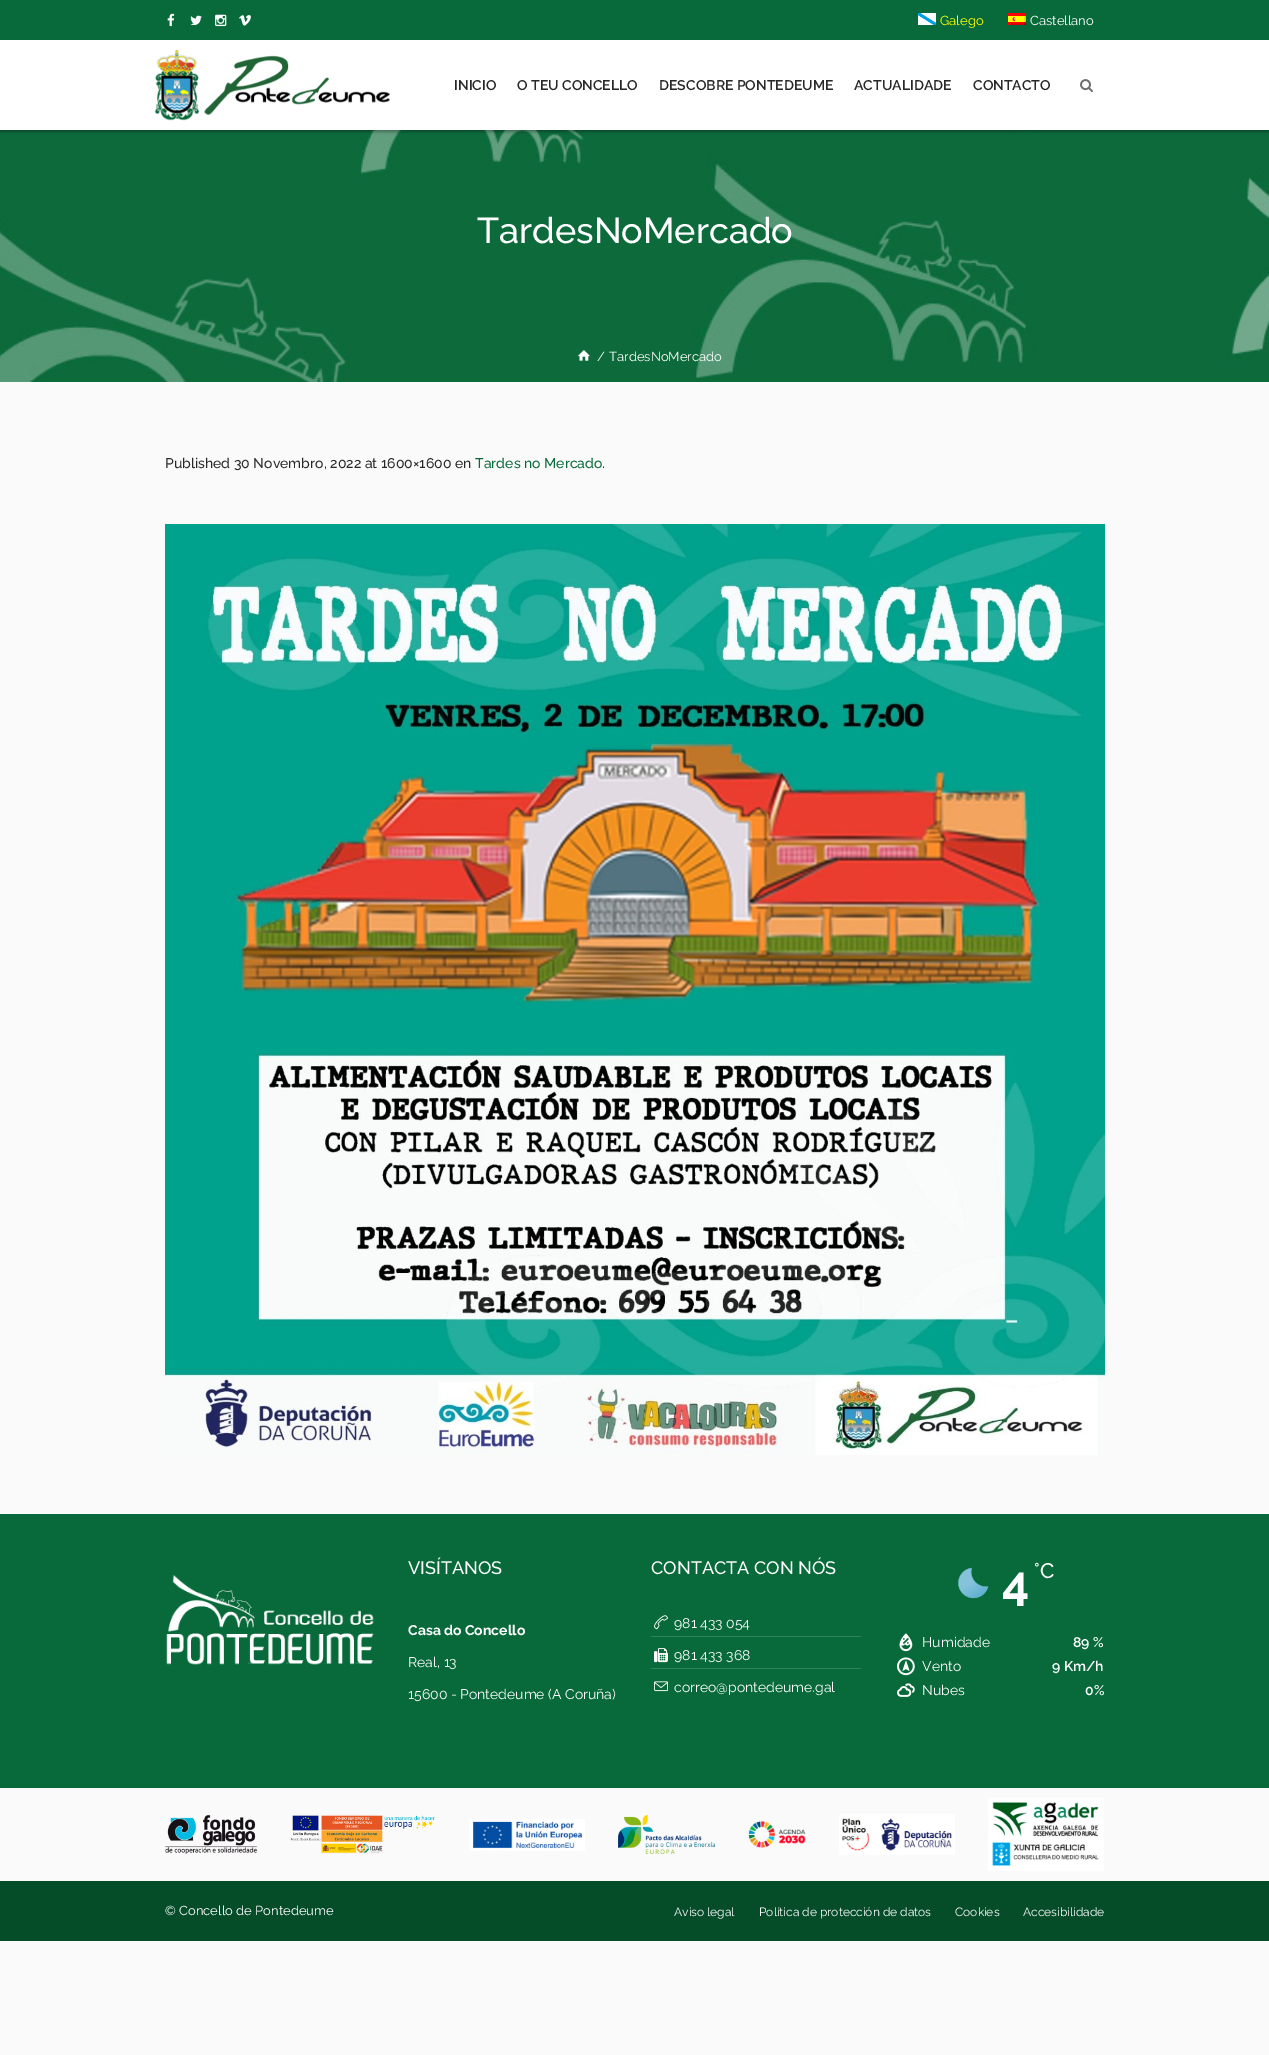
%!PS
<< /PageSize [1269 2055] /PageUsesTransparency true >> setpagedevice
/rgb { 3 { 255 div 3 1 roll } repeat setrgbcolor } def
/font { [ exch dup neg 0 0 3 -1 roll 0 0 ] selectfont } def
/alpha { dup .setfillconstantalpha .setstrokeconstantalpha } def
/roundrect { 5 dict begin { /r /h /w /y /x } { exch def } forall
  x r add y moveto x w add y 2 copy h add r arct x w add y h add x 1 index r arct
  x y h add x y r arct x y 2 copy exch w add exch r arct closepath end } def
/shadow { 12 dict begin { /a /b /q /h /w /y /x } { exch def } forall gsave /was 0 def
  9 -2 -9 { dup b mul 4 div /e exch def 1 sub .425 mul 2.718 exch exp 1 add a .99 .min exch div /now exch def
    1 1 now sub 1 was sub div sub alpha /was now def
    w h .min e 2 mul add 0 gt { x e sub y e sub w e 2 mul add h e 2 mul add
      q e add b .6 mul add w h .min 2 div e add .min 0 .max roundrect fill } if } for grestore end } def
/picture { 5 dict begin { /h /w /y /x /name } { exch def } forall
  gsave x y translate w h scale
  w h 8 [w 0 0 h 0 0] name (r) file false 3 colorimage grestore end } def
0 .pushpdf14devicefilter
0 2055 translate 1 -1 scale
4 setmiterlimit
250 250 250 rgb
0 0 1269 2055 rectfill
8 106 58 rgb
0 0 1269 40 rectfill
(img/1.rgb) 167 13 8 14 picture
(img/2.rgb) 190 15 12 11 picture
(img/3.rgb) 215 14 12 13 picture
(img/4.rgb) 239 15 12 11 picture
(img/5.rgb) 918 13 18 12 picture
(img/6.rgb) 1008 13 18 12 picture
(img/9.rgb) 0 130 1269 252 picture
0 0 0 rgb
0 42 1269 90 0 1.5 0.3 shadow
255 255 255 rgb
0 40 1269 90 rectfill
(img/7.rgb) 154 49 236 72 picture
(img/8.rgb) 1080 79 13 13 picture
(img/10.rgb) 578 350 12 11 picture
(img/11.rgb) 165 524 940 931 picture
8 106 58 rgb
0 1514 1269 274 rectfill
(img/12.rgb) 166 1575 208 90 picture
50 129 91 rgb
651 1636 210 1 rectfill
(img/13.rgb) 654 1615 14 15 picture
651 1668 210 1 rectfill
(img/14.rgb) 654 1648 14 15 picture
(img/15.rgb) 654 1681 14 11 picture
(img/16.rgb) 958 1567 31 32 picture
(img/17.rgb) 899 1633 14 19 picture
(img/18.rgb) 897 1657 18 19 picture
(img/19.rgb) 897 1683 18 14 picture
(img/20.rgb) 165 1815 92 39 picture
(img/21.rgb) 290 1815 145 39 picture
(img/22.rgb) 469 1819 116 32 picture
(img/23.rgb) 618 1815 97 39 picture
(img/24.rgb) 748 1821 58 27 picture
(img/25.rgb) 839 1814 116 41 picture
(img/26.rgb) 988 1798 116 73 picture
5 76 41 rgb
0 1881 1269 60 rectfill
/Raleway-Regular 13 font
255 255 0 rgb
940 25 moveto (Galego) show
255 255 255 rgb
1030 25 moveto (Castellano) show
/Raleway-SemiBold 14 font
40 40 40 rgb
[
  [(INICIO) 454 90]
  [(O TEU CONCELLO) 517 90]
  [(DESCOBRE PONTEDEUME) 659 90]
  [(ACTUALIDADE) 854 90]
  [(CONTACTO) 973 90]
] { aload pop moveto show } forall
/Raleway-Medium 36 font
255 255 255 rgb
477 243 moveto (TardesNoMercado) show
/Raleway-Regular 13 font
597 361 moveto (/) show
609 361 moveto (TardesNoMercado) show
/Raleway-Medium 14 font
40 40 40 rgb
165 468 moveto (Published 30 Novembro, 2022 at 1600×1600 en) show
8 106 58 rgb
475 468 moveto (Tardes no Mercado) show
40 40 40 rgb
602 468 moveto (.) show
/Raleway-Medium 18 font
255 255 255 rgb
408 1574 moveto (VISÍTANOS) show
/Raleway-Bold 14 font
408 1635 moveto (Casa do Concello) show
/Raleway-Regular 14 font
408 1667 moveto (Real, 13) show
408 1699 moveto (15600 - Pontedeume \(A Coruña\)) show
/Raleway-Medium 18 font
651 1574 moveto (CONTACTA CON NÓS) show
/Raleway-Regular 14 font
[
  [(981 433 054) 674 1628]
  [(981 433 368) 674 1660]
  [(correo@pontedeume.gal) 674 1692]
] { aload pop moveto show } forall
/Raleway-Bold 48 font
1002 1600 moveto (4) show
/Raleway-Medium 21 font
1034 1578 moveto (°C) show
/Raleway-Regular 14 font
922 1647 moveto (Humidade) show
/Raleway-SemiBold 14 font
1073 1647 moveto (89 %) show
/Raleway-Regular 14 font
922 1671 moveto (Vento) show
/Raleway-SemiBold 14 font
1052 1671 moveto (9 Km/h) show
/Raleway-Regular 14 font
922 1695 moveto (Nubes) show
/Raleway-SemiBold 14 font
1085 1695 moveto (0%) show
/Raleway-Regular 13 font
165 1915 moveto (© Concello de Pontedeume) show
/Raleway-Regular 12 font
[
  [(Aviso legal) 674 1916]
  [(Política de protección de datos) 759 1916]
  [(Cookies) 955 1916]
  [(Accesibilidade) 1023 1916]
] { aload pop moveto show } forall
.poppdf14devicefilter showpage
